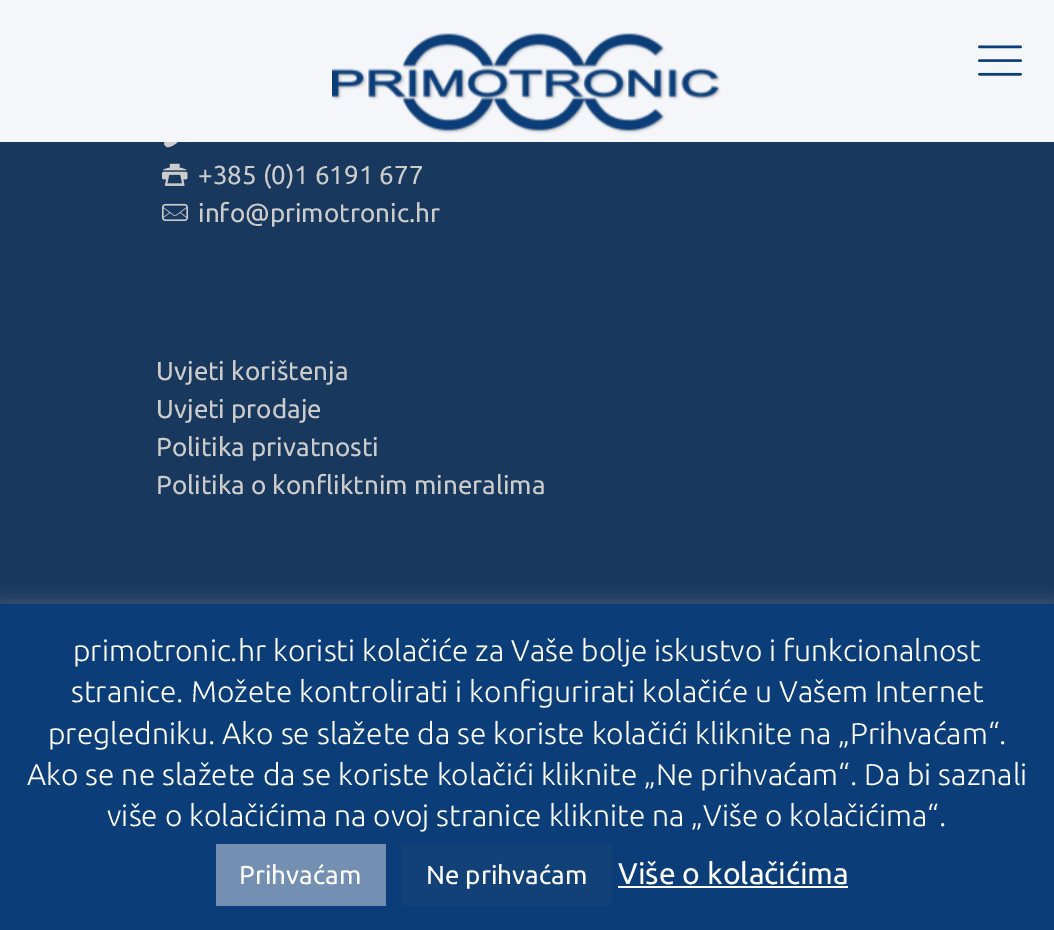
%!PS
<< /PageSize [1054 930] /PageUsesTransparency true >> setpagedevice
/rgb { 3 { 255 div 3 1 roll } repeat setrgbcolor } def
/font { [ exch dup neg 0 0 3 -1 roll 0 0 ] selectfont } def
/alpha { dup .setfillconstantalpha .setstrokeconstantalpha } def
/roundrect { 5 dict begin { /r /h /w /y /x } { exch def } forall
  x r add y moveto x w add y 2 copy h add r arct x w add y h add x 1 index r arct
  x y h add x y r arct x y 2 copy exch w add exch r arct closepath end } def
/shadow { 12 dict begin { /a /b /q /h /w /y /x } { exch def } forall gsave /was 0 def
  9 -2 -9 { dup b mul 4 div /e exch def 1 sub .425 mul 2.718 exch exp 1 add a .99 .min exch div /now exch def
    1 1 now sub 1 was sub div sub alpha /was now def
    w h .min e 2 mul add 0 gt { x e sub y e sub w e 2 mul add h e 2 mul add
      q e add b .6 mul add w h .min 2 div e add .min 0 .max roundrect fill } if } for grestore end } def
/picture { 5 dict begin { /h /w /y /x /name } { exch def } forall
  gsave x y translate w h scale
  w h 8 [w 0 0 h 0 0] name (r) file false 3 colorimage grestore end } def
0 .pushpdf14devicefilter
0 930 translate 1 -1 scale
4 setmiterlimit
25 56 93 rgb
0 0 1054 930 rectfill
245 246 249 rgb
0 0 1054 142 rectfill
(img/1.rgb) 332 33 389 101 picture
(img/2.rgb) 978 45 44 31 picture
(img/3.rgb) 164 142 14 6 picture
(img/4.rgb) 162 163 26 23 picture
(img/5.rgb) 162 203 26 18 picture
172 171 171 rgb
0 602 1054 326 0 10 0.3 shadow
[
  [0 604 1054 326 11 61 120]
  [216 844 170 62 115 144 179]
  [402 844 210 62 17 65 119]
  [618 886 230 2 255 255 255]
] { aload pop rgb rectfill } forall
/Ubuntu-Regular 26 font
204 204 204 rgb
[
  [(+385 \(0\)1 6191 677) 198 184]
  [(info@primotronic.hr) 198 222]
  [(Uvjeti korištenja) 156 380]
  [(Uvjeti prodaje) 156 418]
  [(Politika privatnosti) 156 456]
  [(Politika o konfliktnim mineralima) 156 494]
] { aload pop moveto show } forall
/Ubuntu-Light 30 font
255 255 255 rgb
[
  [(primotronic.hr koristi kolačiće za Vaše bolje iskustvo i funkcionalnost) 73 661]
  [(stranice. Možete kontrolirati i konfigurirati kolačiće u Vašem Internet) 71 702]
  [(pregledniku. Ako se slažete da se koriste kolačići kliknite na „Prihvaćam“.) 48 744]
  [(Ako se ne slažete da se koriste kolačići kliknite „Ne prihvaćam“. Da bi saznali) 27 785]
  [(više o kolačićima na ovoj stranice kliknite na „Više o kolačićima“.) 107 826]
] { aload pop moveto show } forall
/Ubuntu-Regular 26 font
239 884 moveto (Prihvaćam) show
426 884 moveto (Ne prihvaćam) show
/Ubuntu-Regular 30 font
618 884 moveto (Više o kolačićima) show
.poppdf14devicefilter showpage
